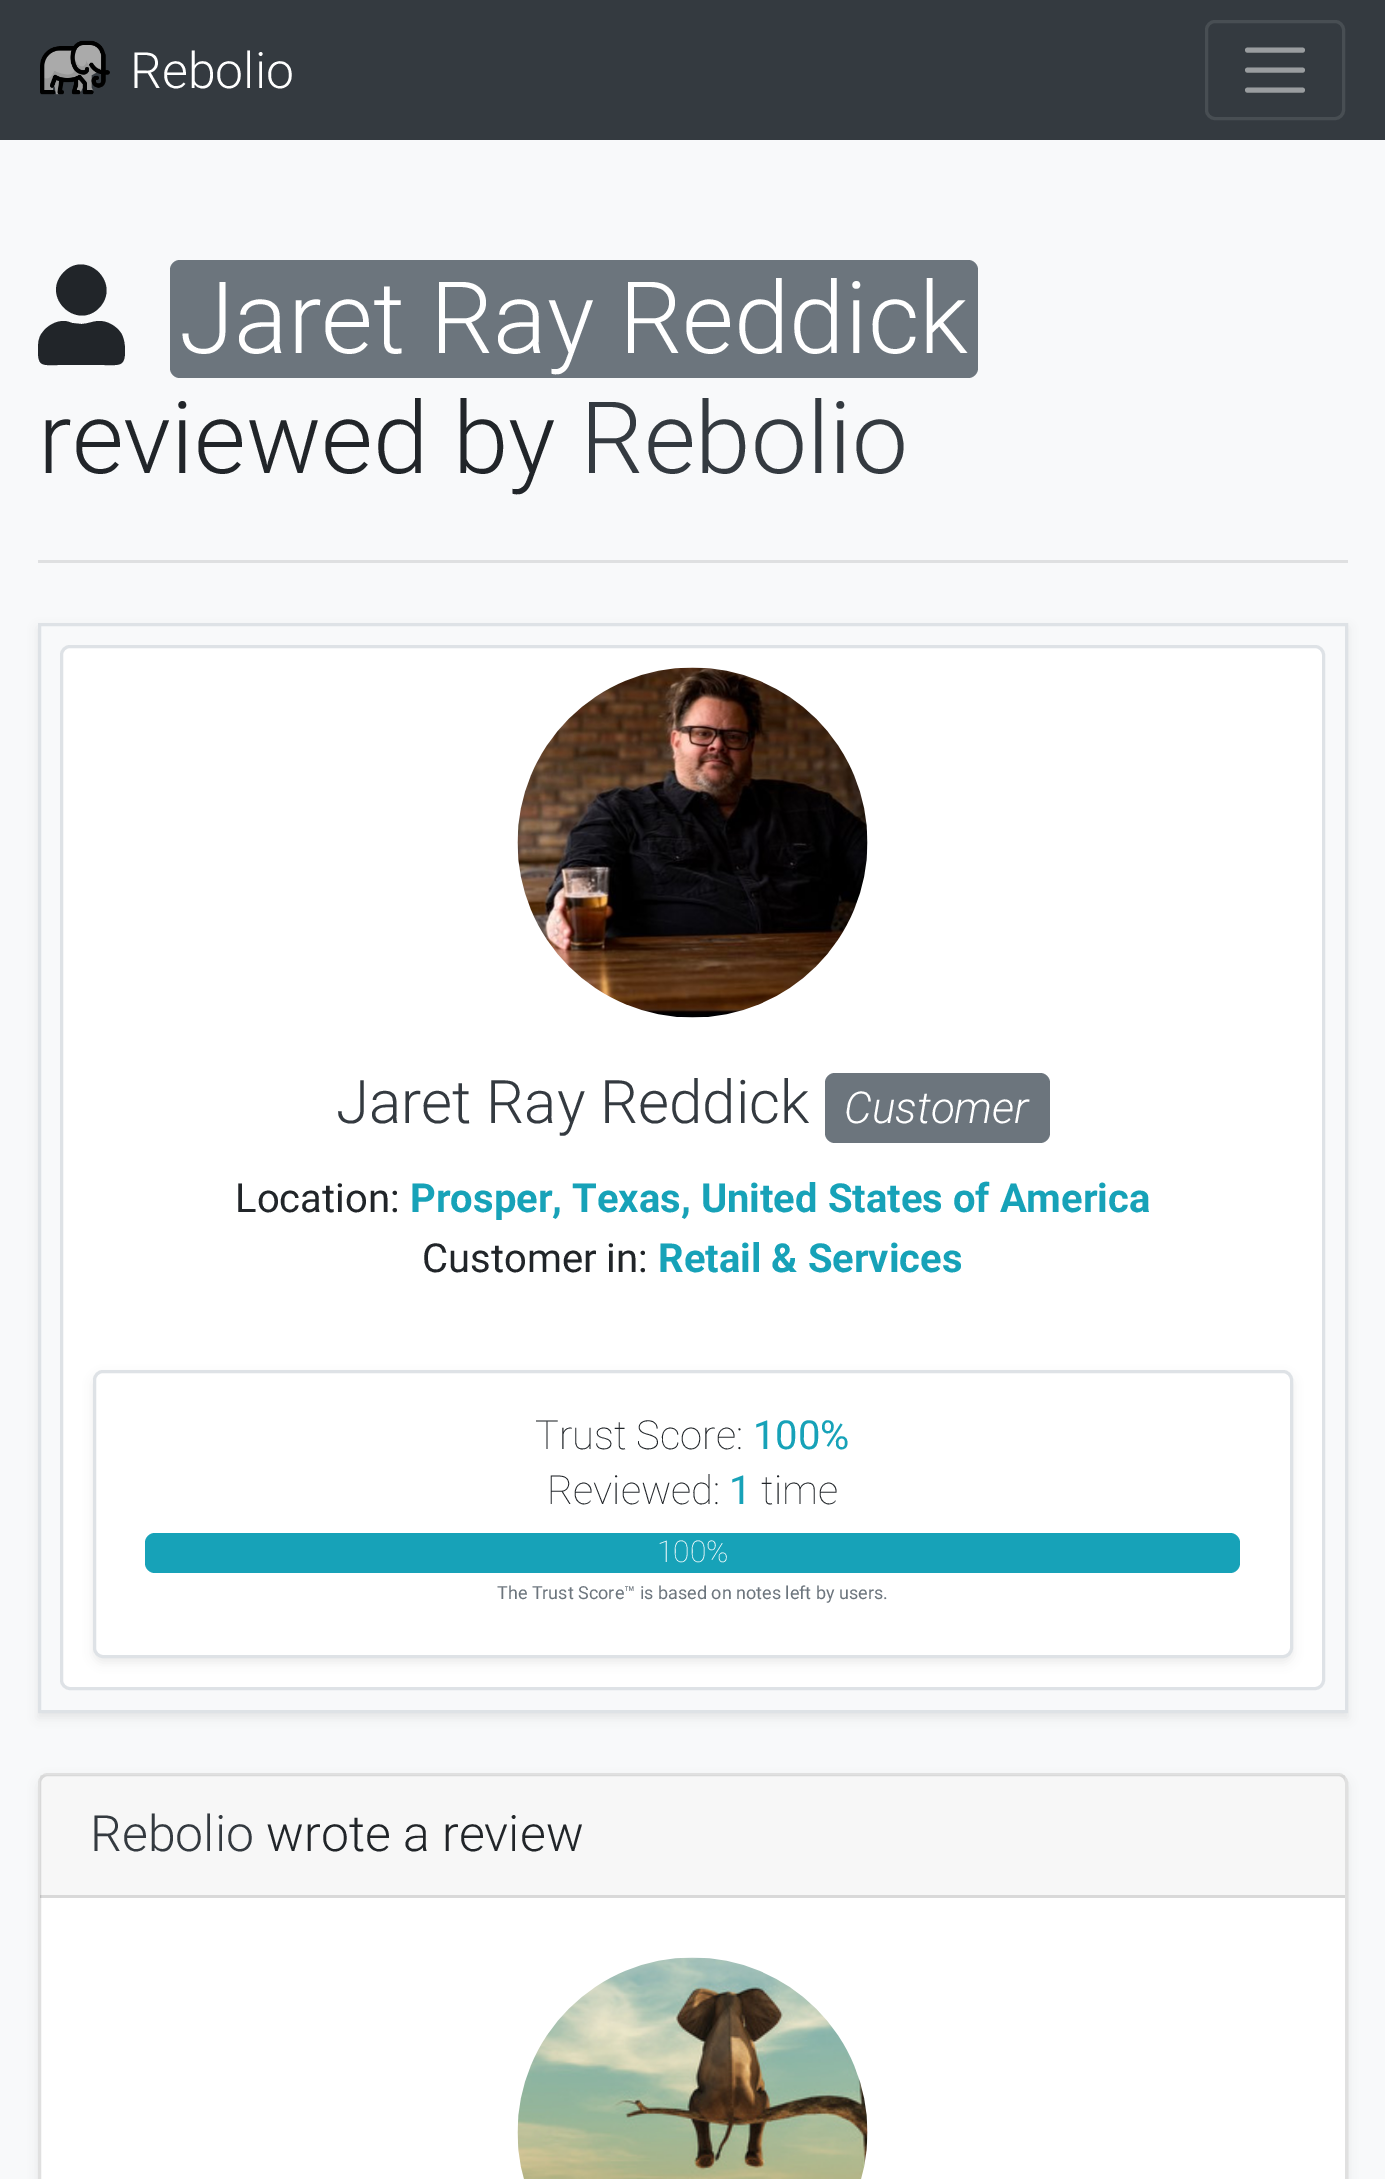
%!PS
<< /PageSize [1385 2179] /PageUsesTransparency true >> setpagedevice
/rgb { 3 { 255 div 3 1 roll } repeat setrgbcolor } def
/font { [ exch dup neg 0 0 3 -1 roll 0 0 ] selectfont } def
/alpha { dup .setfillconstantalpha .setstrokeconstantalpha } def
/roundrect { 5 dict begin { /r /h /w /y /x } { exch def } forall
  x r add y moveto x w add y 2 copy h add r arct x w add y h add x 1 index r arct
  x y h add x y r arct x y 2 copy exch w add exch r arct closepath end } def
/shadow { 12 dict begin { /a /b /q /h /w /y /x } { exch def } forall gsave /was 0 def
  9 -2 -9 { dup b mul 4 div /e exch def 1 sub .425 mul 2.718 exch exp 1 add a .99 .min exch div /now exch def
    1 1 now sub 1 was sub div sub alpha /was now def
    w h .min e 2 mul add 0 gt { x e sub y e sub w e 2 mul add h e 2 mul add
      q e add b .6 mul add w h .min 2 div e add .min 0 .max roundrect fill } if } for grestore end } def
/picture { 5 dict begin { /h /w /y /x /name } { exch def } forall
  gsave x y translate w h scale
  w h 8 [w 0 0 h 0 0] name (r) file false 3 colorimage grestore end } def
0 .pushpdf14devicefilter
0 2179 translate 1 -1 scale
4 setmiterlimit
248 249 250 rgb
0 0 1385 2179 rectfill
52 58 64 rgb
0 0 1385 140 rectfill
(img/1.rgb) 40 40 70 55 picture
72 78 83 rgb
3 setlinewidth
1206.5 21.5 137 97 8.5 roundrect stroke
154 157 160 rgb
5 setlinewidth
1 setlinecap
1247.5 50 moveto 1302.5 50 lineto 1247.5 70 moveto 1302.5 70 lineto 1247.5 90 moveto 1302.5 90 lineto stroke
33 37 41 rgb
99 308 moveto 76 331 40 296 64 272 curveto 87 249 122 284 99 308 curveto closepath 99 321 moveto 108 321 116 326 121 333 curveto 124 338 125 344 125 351 curveto 125 367 119 365 104 365 curveto 58 365 lineto 43 365 38 367 38 351 curveto 38 344 38 338 42 333 curveto 47 326 55 321 64 321 curveto 67 321 69 322 72 323 curveto 81 324 lineto 88 324 93 321 99 321 curveto closepath fill
108 117 125 rgb
170 260 808 118 10 roundrect fill
223 224 225 rgb
38 560 1310 3 rectfill
0 0 0 rgb
38 628 1310 1090 0 5 0.07 shadow
248 249 250 rgb
39.5 624.5 moveto 1346.5 624.5 lineto 1346.5 1711.5 lineto 39.5 1711.5 lineto closepath gsave fill grestore
222 226 230 rgb
3 setlinewidth
0 setlinecap
stroke
255 255 255 rgb
61.5 646.5 1262 1042 8.5 roundrect gsave fill grestore
222 226 230 rgb
stroke
(img/2.rgb) 517 667 351 351 picture
108 117 125 rgb
825 1073 225 70 10 roundrect fill
0 0 0 rgb
93 1375 1200 288 10 5 0.07 shadow
255 255 255 rgb
94.5 1371.5 1197 285 8.5 roundrect gsave fill grestore
222 226 230 rgb
stroke
23 162 184 rgb
145 1533 1095 40 10 roundrect fill
0 0 0 rgb
38 1778 1310 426 10 5 0.07 shadow
255 255 255 rgb
38 1773 1310 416 10 roundrect fill
0.12 alpha
0 0 0 rgb
39.5 1774.5 1307 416 8.5 roundrect stroke
0.03 alpha
40 1775 1305 123 rectfill
0.12 alpha
40 1895 1305 3 rectfill
1 alpha
(img/3.rgb) 517 1957 351 222 picture
/Roboto-Light 50 font
255 255 255 rgb
130 88 moveto (Rebolio) show
/Roboto-Light 100 font
179 353 moveto (Jaret Ray Reddick) show
33 37 41 rgb
38 473 moveto (reviewed by) show
52 58 64 rgb
580 473 moveto (Rebolio) show
/Roboto-Light 60 font
336 1123 moveto (Jaret Ray Reddick) show
/Roboto-LightItalic 44 font
255 255 255 rgb
844 1123 moveto (Customer) show
/Roboto-Regular 40 font
33 37 41 rgb
235 1212 moveto (Location:) show
/Roboto-Bold 40 font
23 162 184 rgb
410 1212 moveto (Prosper, Texas, United States of America) show
/Roboto-Regular 40 font
33 37 41 rgb
422 1272 moveto (Customer in:) show
/Roboto-Bold 40 font
23 162 184 rgb
658 1272 moveto (Retail & Services) show
/Roboto-Thin 40 font
33 37 41 rgb
535 1449 moveto (Trust Score:) show
/Roboto-Regular 40 font
23 162 184 rgb
753 1449 moveto (100%) show
/Roboto-Thin 40 font
33 37 41 rgb
547 1504 moveto (Reviewed:) show
/Roboto-Regular 40 font
23 162 184 rgb
729 1504 moveto (1) show
/Roboto-Thin 40 font
33 37 41 rgb
761 1504 moveto (time) show
/Roboto-Thin 30 font
255 255 255 rgb
657 1562 moveto (100%) show
/Roboto-Regular 18 font
108 117 125 rgb
497 1599 moveto (The Trust Score™ is based on notes left by users.) show
/Roboto-Light 50 font
52 58 64 rgb
90 1851 moveto (Rebolio) show
33 37 41 rgb
266 1851 moveto (wrote a review) show
.poppdf14devicefilter showpage
